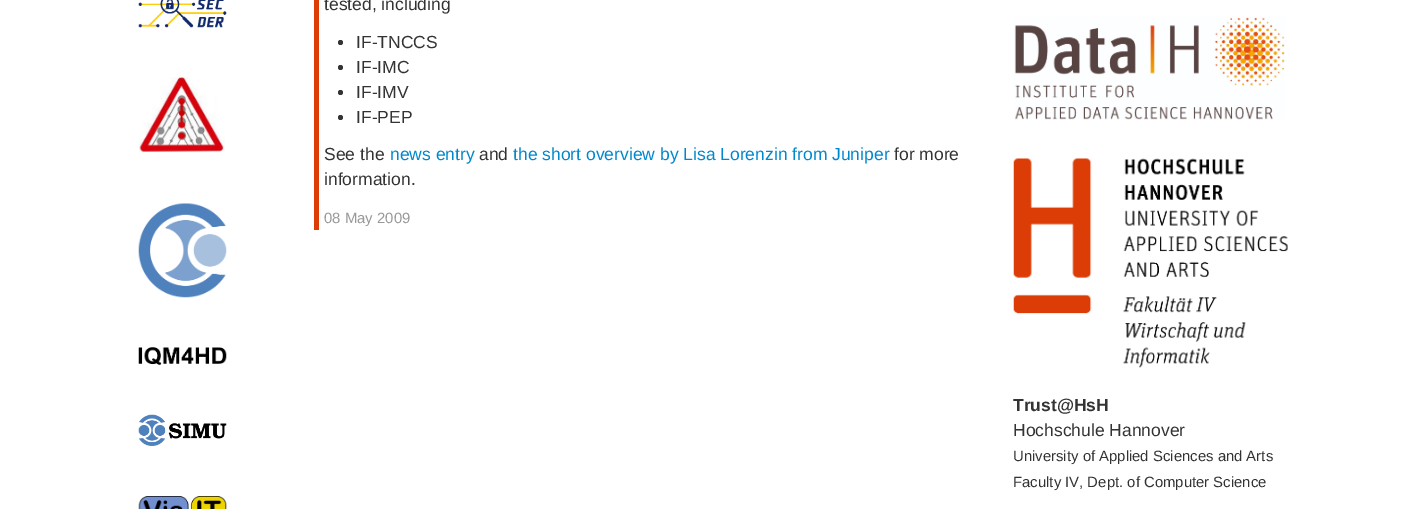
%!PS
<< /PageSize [1401 509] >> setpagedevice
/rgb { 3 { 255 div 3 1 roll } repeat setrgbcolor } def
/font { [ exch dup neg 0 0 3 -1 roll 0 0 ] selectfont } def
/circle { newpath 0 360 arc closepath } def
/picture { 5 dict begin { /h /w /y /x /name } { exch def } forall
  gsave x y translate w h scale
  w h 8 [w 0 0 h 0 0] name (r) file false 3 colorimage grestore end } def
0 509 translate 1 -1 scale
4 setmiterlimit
255 255 255 rgb
0 0 1401 509 rectfill
(img/1.rgb) 138 0 89 28 picture
(img/2.rgb) 139 77 86 75 picture
(img/3.rgb) 138 203 89 95 picture
(img/4.rgb) 138 347 89 18 picture
(img/5.rgb) 138 414 89 32 picture
(img/6.rgb) 138 496 89 13 picture
220 60 5 rgb
314 0 5 230 rectfill
51 51 51 rgb
340.5 42.5 2.5 circle fill
340.5 67.5 2.5 circle fill
340.5 92.5 2.5 circle fill
340.5 117.5 2.5 circle fill
(img/7.rgb) 1014 17 271 103 picture
(img/8.rgb) 1013 158 275 210 picture
/LiberationSans-Regular 17.5 font
[
  [(tested, including) 324 10]
  [(IF-TNCCS) 356 48]
  [(IF-IMC) 356 73]
  [(IF-IMV) 356 98]
  [(IF-PEP) 356 123]
  [(See the) 324 160]
] { aload pop moveto show } forall
0 136 204 rgb
390 160 moveto (news entry) show
51 51 51 rgb
479 160 moveto (and) show
0 136 204 rgb
513 160 moveto (the short overview by Lisa Lorenzin from Juniper) show
51 51 51 rgb
894 160 moveto (for more) show
324 185 moveto (information.) show
/LiberationSans-Regular 14.9 font
153 153 153 rgb
324 223 moveto (08 May 2009) show
/LiberationSans-Bold 17.5 font
51 51 51 rgb
1013 411 moveto (Trust@HsH) show
/LiberationSans-Regular 17.5 font
1013 436 moveto (Hochschule Hannover) show
/LiberationSans-Regular 14.9 font
1013 461 moveto (University of Applied Sciences and Arts) show
1013 487 moveto (Faculty IV, Dept. of Computer Science) show
showpage
